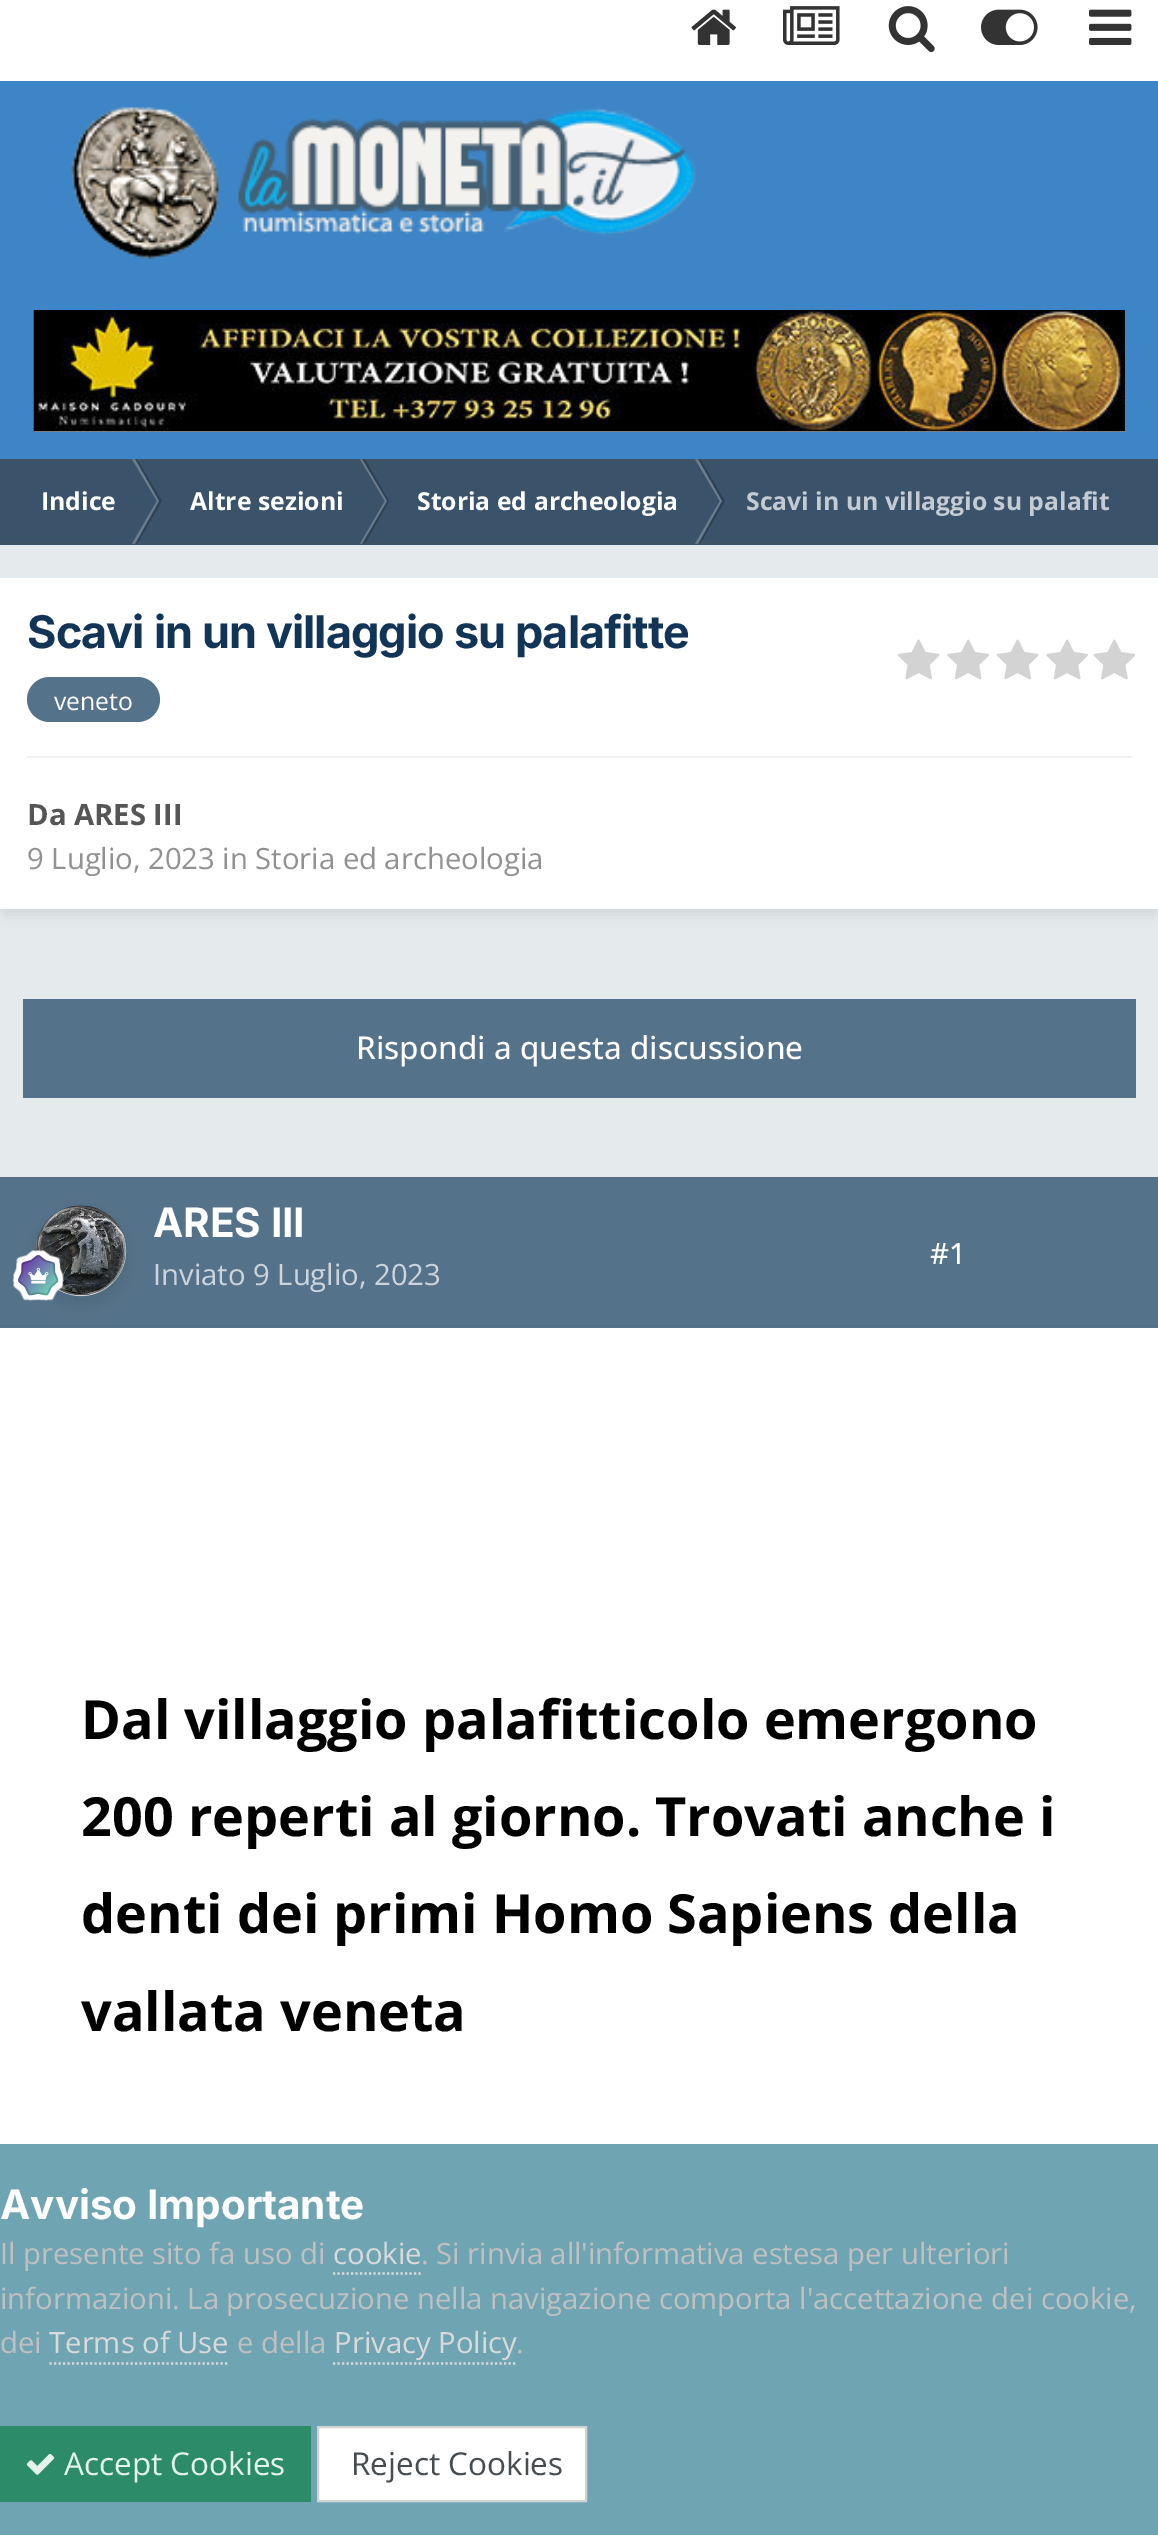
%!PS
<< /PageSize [1158 2535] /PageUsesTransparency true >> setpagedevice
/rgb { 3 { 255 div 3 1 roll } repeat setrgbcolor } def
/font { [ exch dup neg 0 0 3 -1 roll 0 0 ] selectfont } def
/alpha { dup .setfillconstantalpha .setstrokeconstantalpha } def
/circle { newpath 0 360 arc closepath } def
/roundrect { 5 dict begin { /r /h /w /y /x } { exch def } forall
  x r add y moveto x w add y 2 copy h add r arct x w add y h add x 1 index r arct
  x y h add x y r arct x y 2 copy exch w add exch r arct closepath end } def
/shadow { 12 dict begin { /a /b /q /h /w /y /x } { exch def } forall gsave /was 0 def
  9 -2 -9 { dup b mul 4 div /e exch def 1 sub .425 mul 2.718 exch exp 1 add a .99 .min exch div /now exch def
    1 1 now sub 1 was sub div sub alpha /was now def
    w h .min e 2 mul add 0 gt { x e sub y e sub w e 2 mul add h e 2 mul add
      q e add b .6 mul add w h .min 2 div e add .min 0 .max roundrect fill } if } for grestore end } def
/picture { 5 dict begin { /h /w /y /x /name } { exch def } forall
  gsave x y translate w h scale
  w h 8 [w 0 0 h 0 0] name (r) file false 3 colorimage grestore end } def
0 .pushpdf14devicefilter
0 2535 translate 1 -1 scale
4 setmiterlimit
229 234 237 rgb
0 0 1158 2535 rectfill
255 255 255 rgb
0 0 1158 81 rectfill
(img/1.rgb) 691 9 45 36 picture
(img/2.rgb) 783 6 57 39 picture
(img/3.rgb) 888 6 47 47 picture
(img/4.rgb) 981 9 57 36 picture
(img/5.rgb) 1089 9 43 36 picture
61 133 198 rgb
0 81 1158 378 rectfill
(img/6.rgb) 71 107 625 152 picture
250 250 250 rgb
34 431 1091 1 rectfill
(img/7.rgb) 33 310 1092 122 picture
58 83 107 rgb
0 459 1158 86 rectfill
107 126 144 rgb
132 459 moveto 135 459 lineto 159 501 lineto 157 501 lineto closepath fill
0.2 alpha
0 0 0 rgb
135 459 moveto 137 459 lineto 162 501 lineto 159 501 lineto closepath fill
1 alpha
107 126 144 rgb
360 459 moveto 362 459 lineto 387 501 lineto 385 501 lineto closepath fill
0.2 alpha
0 0 0 rgb
362 459 moveto 365 459 lineto 389 501 lineto 387 501 lineto closepath fill
1 alpha
107 126 144 rgb
695 459 moveto 698 459 lineto 722 501 lineto 720 501 lineto closepath fill
0.2 alpha
0 0 0 rgb
698 459 moveto 700 459 lineto 725 501 lineto 722 501 lineto closepath fill
85 85 85 rgb
0 459 1158 2 rectfill
1 alpha
107 126 144 rgb
132 544 moveto 135 544 lineto 159 501 lineto 157 501 lineto closepath fill
0.2 alpha
0 0 0 rgb
135 544 moveto 137 544 lineto 162 501 lineto 159 501 lineto closepath fill
1 alpha
107 126 144 rgb
360 544 moveto 362 544 lineto 387 501 lineto 385 501 lineto closepath fill
0.2 alpha
0 0 0 rgb
362 544 moveto 365 544 lineto 389 501 lineto 387 501 lineto closepath fill
1 alpha
107 126 144 rgb
695 544 moveto 698 544 lineto 722 501 lineto 720 501 lineto closepath fill
0.2 alpha
0 0 0 rgb
698 544 moveto 700 544 lineto 725 501 lineto 722 501 lineto closepath fill
85 85 85 rgb
0 542 1158 2 rectfill
1 alpha
0 0 0 rgb
5 592 1149 322 0 7 0.1 shadow
255 255 255 rgb
0 578 1158 331 rectfill
85 114 139 rgb
27 677 133 45 22.5 roundrect fill
(img/8.rgb) 897 639 43 41 picture
(img/9.rgb) 947 639 42 41 picture
(img/8.rgb) 996 639 43 41 picture
(img/9.rgb) 1046 639 42 41 picture
(img/10.rgb) 1093 639 43 41 picture
[
  [27 756 1105 2 241 241 241]
  [23 999 1113 99 85 114 139]
  [0 1328 1158 816 255 255 255]
  [0 1179 1158 149 85 114 139]
  [0 1177 1158 2 85 111 134]
  [0 1325 1158 2 85 111 134]
] { aload pop rgb rectfill } forall
255 255 255 rgb
81 1251 45 circle fill
(img/11.rgb) 36 1205 90 91 picture
gsave
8 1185 moveto 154 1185 lineto 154 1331 lineto 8 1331 lineto closepath 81 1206 moveto 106 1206 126 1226 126 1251 curveto 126 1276 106 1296 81 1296 curveto 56 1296 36 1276 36 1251 curveto 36 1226 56 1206 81 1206 curveto closepath eoclip newpath
0 0 0 rgb
36 1213 90 90 45 9 0.1 shadow
grestore
0.3 alpha
2 setlinewidth
81 1251 44 circle stroke
1 alpha
(img/12.rgb) 13 1250 51 51 picture
111 164 179 rgb
0 2144 1158 391 rectfill
218 218 218 rgb
2.2 setlinewidth
[2.25 2.25] 0 setdash
333 2273.5 moveto 421 2273.5 lineto stroke
49.5 2363.5 moveto 229.5 2363.5 lineto stroke
333 2363.5 moveto 517.5 2363.5 lineto stroke
44 140 105 rgb
0 2426 311 76 rectfill
(img/13.rgb) 26 2453 29 22 picture
255 255 255 rgb
318 2427 moveto 586 2427 lineto 586 2501 lineto 318 2501 lineto closepath gsave fill grestore
209 210 211 rgb
2 setlinewidth
[] 0 setdash
stroke
/OpenSans-Bold 24.75 font
255 255 255 rgb
[
  [(Indice) 41 510]
  [(Altre sezioni) 190 510]
  [(Storia ed archeologia) 417 510]
] { aload pop moveto show } forall
196 203 211 rgb
746 510 moveto (Scavi in un villaggio su palafit) show
/Inter-Bold 45 font
18 52 86 rgb
27 648 moveto -0.9 0 (Scavi in un villaggio su palafitte) ashow
/OpenSans-Regular 24.75 font
255 255 255 rgb
54 710 moveto (veneto) show
/OpenSans-Bold 29.25 font
85 85 85 rgb
27 825 moveto (Da ARES III) show
/OpenSans-Regular 29.25 font
145 145 145 rgb
27 869 moveto (9 Luglio, 2023 in Storia ed archeologia) show
/OpenSans-Medium 31.5 font
255 255 255 rgb
356 1059 moveto (Rispondi a questa discussione) show
/Inter-Bold 40.5 font
153 1237 moveto (ARES III) show
/OpenSans-Regular 29.25 font
204 213 220 rgb
153 1285 moveto (Inviato 9 Luglio, 2023) show
/OpenSans-Medium 29.25 font
255 255 255 rgb
930 1264 moveto (#1) show
/OpenSans-Bold 54 font
0 0 0 rgb
[
  [(Dal villaggio palafitticolo emergono) 81 1739]
  [(200 reperti al giorno. Trovati anche i) 81 1836]
  [(denti dei primi Homo Sapiens della) 81 1933]
  [(vallata veneta) 81 2031]
] { aload pop moveto show } forall
/Inter-Bold 40.5 font
255 255 255 rgb
0 2219 moveto (Avviso Importante) show
/OpenSans-Regular 29.25 font
192 192 192 rgb
0 2264 moveto (Il presente sito fa uso di) show
218 218 218 rgb
333 2264 moveto (cookie) show
192 192 192 rgb
[
  [(. Si rinvia all'informativa estesa per ulteriori) 421 2264]
  [(informazioni. La prosecuzione nella navigazione comporta l'accettazione dei cookie,) 0 2309]
  [(dei) 0 2353]
] { aload pop moveto show } forall
218 218 218 rgb
49 2353 moveto (Terms of Use) show
192 192 192 rgb
237 2353 moveto (e della) show
218 218 218 rgb
334 2353 moveto (Privacy Policy) show
192 192 192 rgb
516 2353 moveto (.) show
/OpenSans-Regular 31.5 font
227 243 236 rgb
64 2475 moveto (Accept Cookies) show
70 76 80 rgb
351 2475 moveto (Reject Cookies) show
.poppdf14devicefilter showpage
